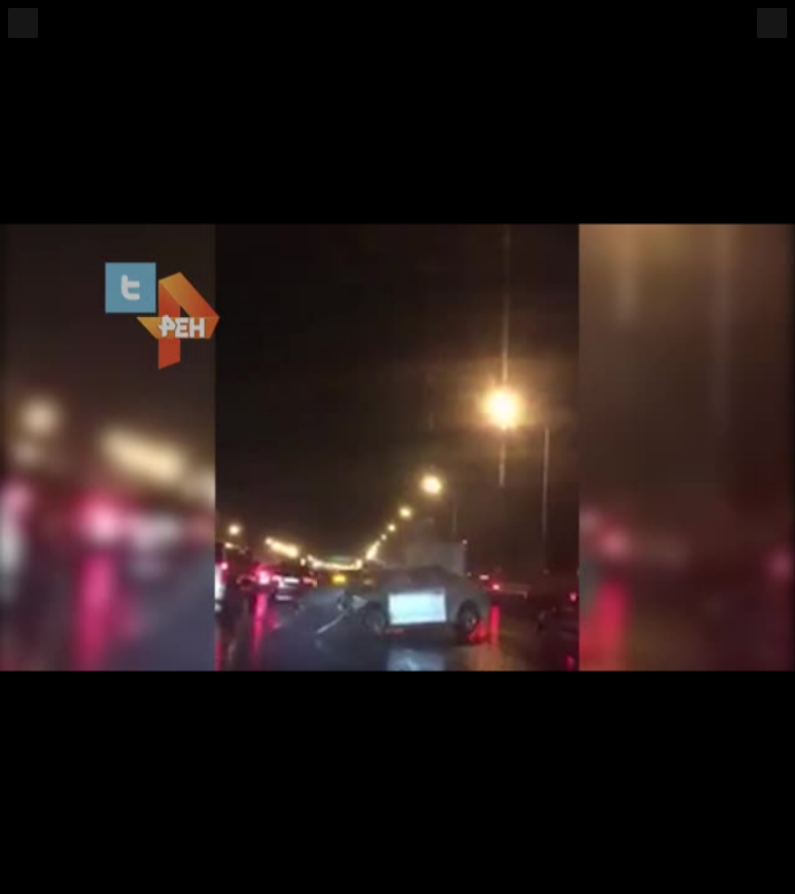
%!PS
<< /PageSize [795 894] >> setpagedevice
/rgb { 3 { 255 div 3 1 roll } repeat setrgbcolor } def
/roundrect { 5 dict begin { /r /h /w /y /x } { exch def } forall
  x r add y moveto x w add y 2 copy h add r arct x w add y h add x 1 index r arct
  x y h add x y r arct x y 2 copy exch w add exch r arct closepath end } def
/picture { 5 dict begin { /h /w /y /x /name } { exch def } forall
  gsave x y translate w h scale
  w h 8 [w 0 0 h 0 0] name (r) file false 3 colorimage grestore end } def
0 894 translate 1 -1 scale
4 setmiterlimit
0 0 0 rgb
0 0 795 894 rectfill
22 22 22 rgb
8 8 30 30 2 roundrect fill
757 8 30 30 2 roundrect fill
(img/1.rgb) 0 223 795 449 picture
showpage
